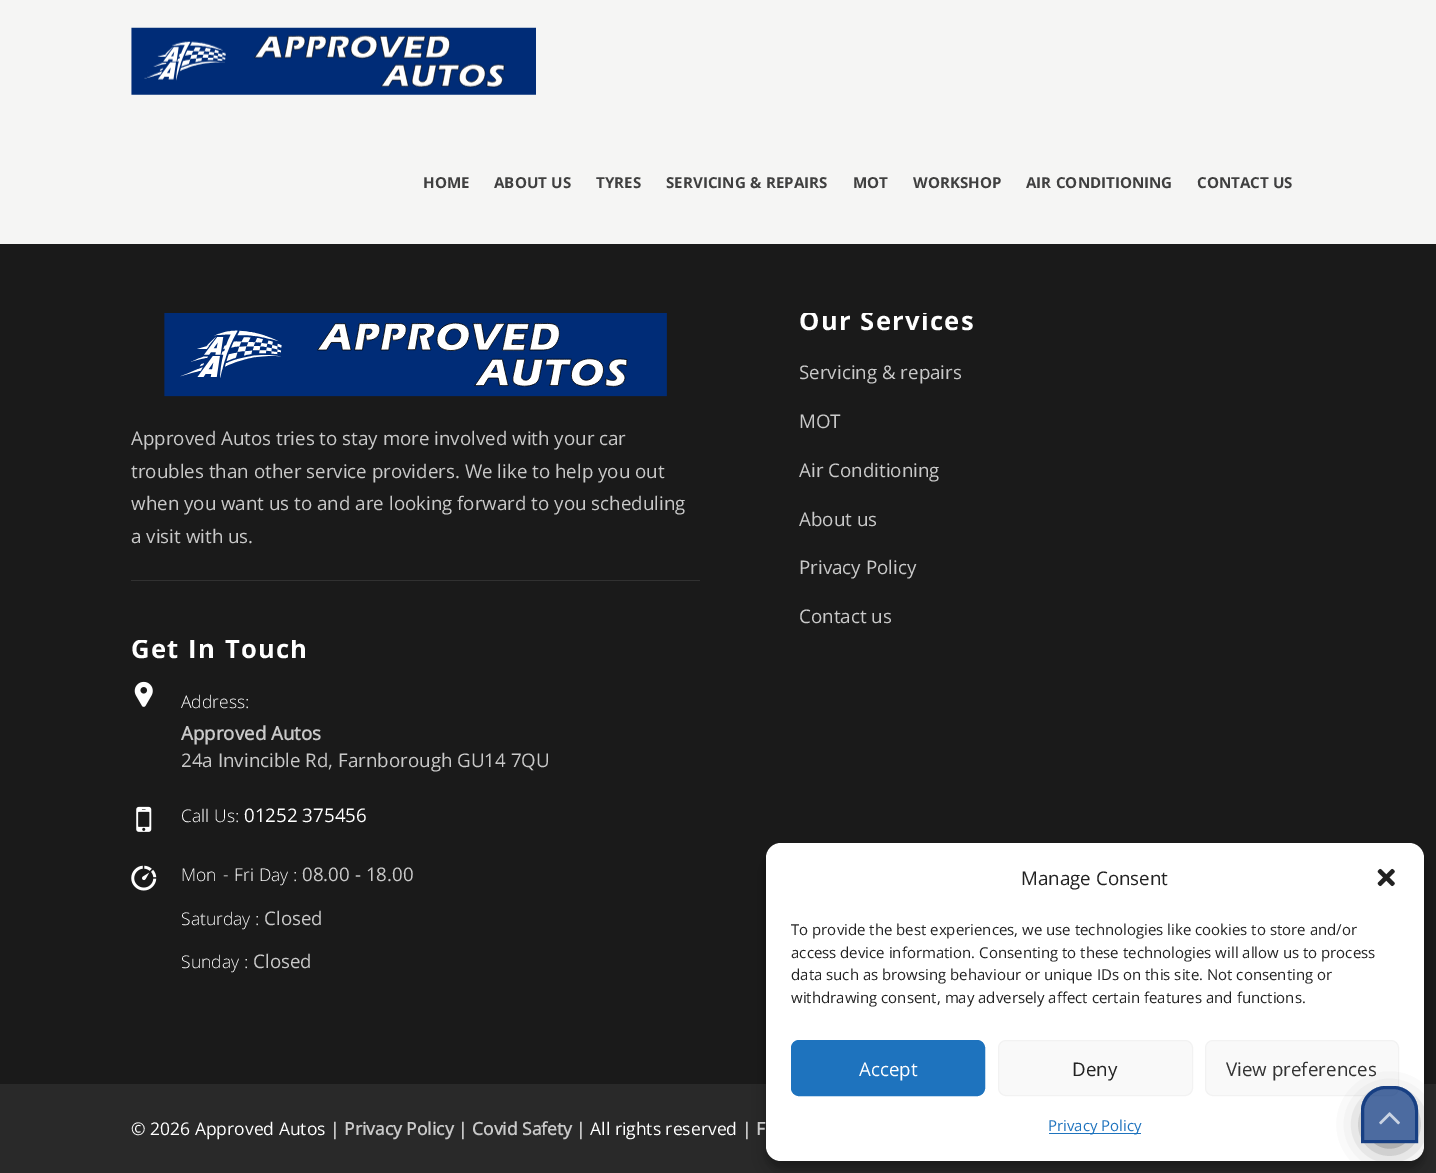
%!PS
<< /PageSize [1436 1173] /PageUsesTransparency true >> setpagedevice
/rgb { 3 { 255 div 3 1 roll } repeat setrgbcolor } def
/font { [ exch dup neg 0 0 3 -1 roll 0 0 ] selectfont } def
/alpha { dup .setfillconstantalpha .setstrokeconstantalpha } def
/roundrect { 5 dict begin { /r /h /w /y /x } { exch def } forall
  x r add y moveto x w add y 2 copy h add r arct x w add y h add x 1 index r arct
  x y h add x y r arct x y 2 copy exch w add exch r arct closepath end } def
/shadow { 12 dict begin { /a /b /q /h /w /y /x } { exch def } forall gsave /was 0 def
  9 -2 -9 { dup b mul 4 div /e exch def 1 sub .425 mul 2.718 exch exp 1 add a .99 .min exch div /now exch def
    1 1 now sub 1 was sub div sub alpha /was now def
    w h .min e 2 mul add 0 gt { x e sub y e sub w e 2 mul add h e 2 mul add
      q e add b .6 mul add w h .min 2 div e add .min 0 .max roundrect fill } if } for grestore end } def
/picture { 5 dict begin { /h /w /y /x /name } { exch def } forall
  gsave x y translate w h scale
  w h 8 [w 0 0 h 0 0] name (r) file false 3 colorimage grestore end } def
0 .pushpdf14devicefilter
0 1173 translate 1 -1 scale
4 setmiterlimit
41 41 41 rgb
0 0 1436 1173 rectfill
245 245 244 rgb
0 0 1436 244 rectfill
(img/1.rgb) 131 27 405 68 picture
26 26 26 rgb
0 244 1436 840 rectfill
(img/2.rgb) 164 313 503 84 picture
49 49 49 rgb
131 580 569 1 rectfill
(img/3.rgb) 134 681 19 26 picture
(img/4.rgb) 136 806 16 26 picture
(img/5.rgb) 131 865 26 26 picture
0 0 0 rgb
766 850 658 319 15 4 0.23 shadow
766 855 658 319 15 12.5 0.19 shadow
255 255 255 rgb
766 843 658 318 15 roundrect fill
249 249 249 rgb
1205.5 1040.5 193 55 7.5 roundrect gsave fill grestore
242 242 242 rgb
stroke
gsave
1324 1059 moveto 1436 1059 lineto 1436 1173 lineto 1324 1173 lineto closepath 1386 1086 moveto 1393 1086 lineto 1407 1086 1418 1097 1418 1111 curveto 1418 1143 lineto 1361 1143 lineto 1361 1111 lineto 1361 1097 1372 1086 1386 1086 curveto closepath eoclip newpath
27 27 27 rgb
1369 1104 41 41 18 14.5 0.7 shadow
grestore
0.7 alpha
0 44 119 rgb
1386 1086 moveto 1393 1086 lineto 1407 1086 1418 1097 1418 1111 curveto 1418 1143 lineto 1361 1143 lineto 1361 1111 lineto 1361 1097 1372 1086 1386 1086 curveto closepath fill
3 setlinewidth
1386 1087.5 moveto 1393 1087.5 lineto 1406 1087.5 1416.5 1098 1416.5 1111 curveto 1416.5 1141.5 lineto 1362.5 1141.5 lineto 1362.5 1111 lineto 1362.5 1098 1373 1087.5 1386 1087.5 curveto closepath stroke
1 alpha
(img/6.rgb) 1379 1112 21 13 picture
(img/7.rgb) 1377 868 18 19 picture
30 115 190 rgb
791.5 1040.5 193 55 7.5 roundrect gsave fill grestore
1 setlinewidth
stroke
249 249 249 rgb
998.5 1040.5 194 55 7.5 roundrect gsave fill grestore
242 242 242 rgb
stroke
30 115 190 rgb
1049 1133 92 1 rectfill
/Khula-Bold 16.25 font
64 64 64 rgb
[
  [(HOME) 423 188]
  [(ABOUT US) 494 188]
  [(TYRES) 596 188]
  [(SERVICING & REPAIRS) 666 188]
  [(MOT) 853 188]
  [(WORKSHOP) 913 188]
  [(AIR CONDITIONING) 1026 188]
  [(CONTACT US) 1197 188]
] { aload pop moveto show } forall
/OpenSans-Regular 18.75 font
201 201 201 rgb
[
  [(Approved Autos tries to stay more involved with your car) 131 445]
  [(troubles than other service providers. We like to help you out) 131 478]
  [(when you want us to and are looking forward to you scheduling) 131 510]
  [(a visit with us.) 131 543]
] { aload pop moveto show } forall
gsave
800 313 506 327 rectclip
/Khula-Bold 27.5 font
255 255 255 rgb
799 330 moveto 1.25 0 (Our Services) ashow
grestore
[
  [(Servicing & repairs) 799 379]
  [(MOT) 799 428]
  [(Air Conditioning) 799 477]
  [(About us) 799 526]
  [(Privacy Policy) 799 574]
  [(Contact us) 799 623]
] { aload pop moveto show } forall
gsave
131 640 569 356 rectclip
/Khula-Bold 27.5 font
255 255 255 rgb
131 658 moveto 1.25 0 (Get In Touch) ashow
grestore
/Khula-Light 18.75 font
255 255 255 rgb
181 708 moveto (Address:) show
/OpenSans-Bold 18.75 font
201 201 201 rgb
181 740 moveto (Approved Autos) show
/OpenSans-Regular 18.75 font
181 767 moveto (24a Invincible Rd, Farnborough GU14 7QU) show
/Khula-Light 18.75 font
255 255 255 rgb
181 822 moveto (Call Us:) show
/OpenSans-Regular 18.75 font
244 822 moveto (01252 375456) show
/Khula-Light 18.75 font
181 881 moveto (Mon - Fri Day :) show
/OpenSans-Regular 18.75 font
201 201 201 rgb
302 881 moveto (08.00 - 18.00) show
/Khula-Light 18.75 font
255 255 255 rgb
181 925 moveto (Saturday :) show
/OpenSans-Regular 18.75 font
201 201 201 rgb
264 925 moveto (Closed) show
/Khula-Light 18.75 font
255 255 255 rgb
181 968 moveto (Sunday :) show
/OpenSans-Regular 18.75 font
201 201 201 rgb
253 968 moveto (Closed) show
/OpenSans-Regular 17.5 font
255 255 255 rgb
131 1135 moveto (© 2026 Approved Autos |) show
/OpenSans-Bold 17.5 font
201 201 201 rgb
344 1135 moveto (Privacy Policy) show
/OpenSans-Regular 17.5 font
255 255 255 rgb
458 1135 moveto (|) show
/OpenSans-Bold 17.5 font
201 201 201 rgb
472 1135 moveto (Covid Safety) show
/OpenSans-Regular 17.5 font
255 255 255 rgb
576 1135 moveto (| All rights reserved |) show
/OpenSans-Bold 17.5 font
201 201 201 rgb
756 1135 moveto (F) show
/OpenSans-Regular 18.75 font
34 34 34 rgb
1021 885 moveto (Manage Consent) show
/OpenSans-Regular 15 font
[
  [(To provide the best experiences, we use technologies like cookies to store and/or) 791 935]
  [(access device information. Consenting to these technologies will allow us to process) 791 958]
  [(data such as browsing behaviour or unique IDs on this site. Not consenting or) 791 980]
  [(withdrawing consent, may adversely affect certain features and functions.) 791 1003]
] { aload pop moveto show } forall
/OpenSans-Regular 18.75 font
255 255 255 rgb
859 1076 moveto (Accept) show
34 34 34 rgb
1072 1076 moveto (Deny) show
51 51 51 rgb
1226 1076 moveto (View preferences) show
/OpenSans-Regular 15 font
30 115 190 rgb
1048 1131 moveto (Privacy Policy) show
.poppdf14devicefilter showpage
